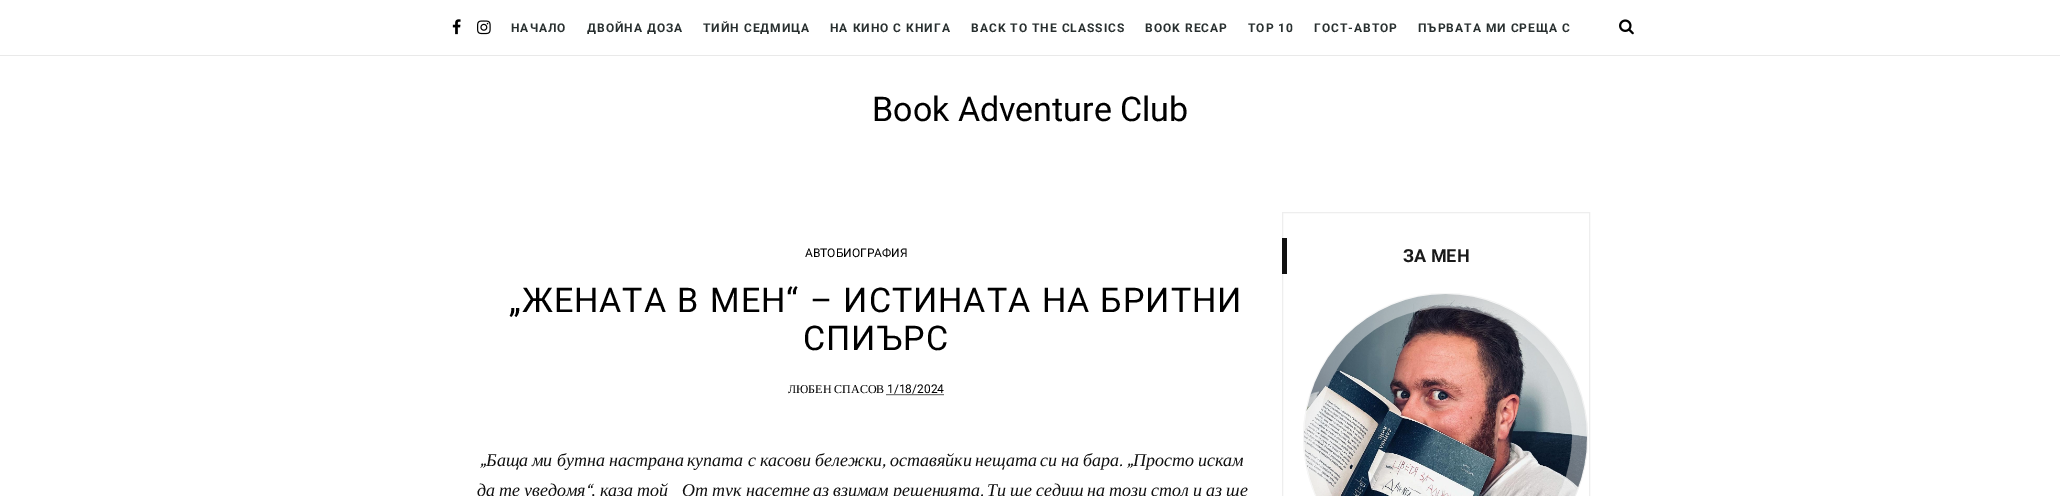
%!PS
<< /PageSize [2060 496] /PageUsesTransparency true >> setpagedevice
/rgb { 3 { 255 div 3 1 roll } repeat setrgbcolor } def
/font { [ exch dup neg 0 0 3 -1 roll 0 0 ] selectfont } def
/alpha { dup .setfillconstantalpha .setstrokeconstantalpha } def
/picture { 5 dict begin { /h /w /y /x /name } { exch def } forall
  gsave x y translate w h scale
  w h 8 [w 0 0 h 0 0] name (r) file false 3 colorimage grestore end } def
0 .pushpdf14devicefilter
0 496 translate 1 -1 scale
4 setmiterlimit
255 255 255 rgb
0 0 2060 496 rectfill
233 233 233 rgb
0 55 2060 1 rectfill
(img/1.rgb) 452 19 9 16 picture
(img/2.rgb) 477 20 14 15 picture
(img/3.rgb) 1619 19 15 16 picture
0 0 0 rgb
[1 1] 0 setdash
886.5 394.5 moveto 944 394.5 lineto stroke
238 238 238 rgb
[] 0 setdash
1282.5 212.5 307 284 rectstroke
17 17 17 rgb
1282 238 5 36 rectfill
239 239 239 rgb
1445.5 293.5 moveto 1524 293.5 1587.5 358 1587.5 437.5 curveto 1587.5 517 1524 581.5 1445.5 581.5 curveto 1367 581.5 1303.5 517 1303.5 437.5 curveto 1303.5 358 1367 293.5 1445.5 293.5 curveto closepath stroke
(img/4.rgb) 1304 294 283 202 picture
0.4 alpha
255 255 255 rgb
15 setlinewidth
1445 300.5 moveto 1519.5 300.5 1579.5 361.5 1579.5 437 curveto 1579.5 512.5 1519.5 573.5 1445 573.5 curveto 1370.5 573.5 1310.5 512.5 1310.5 437 curveto 1310.5 361.5 1370.5 300.5 1445 300.5 curveto closepath stroke
/Roboto-Bold 12 font
1 alpha
40 47 47 rgb
511 32 moveto 1 0 (НАЧАЛО) ashow
587 32 moveto 1 0 (ДВОЙНА ДОЗА) ashow
703 32 moveto 1 0 (ТИЙН СЕДМИЦА) ashow
830 32 moveto 1 0 (НА КИНО С КНИГА) ashow
971 32 moveto 1 0 (BACK TO THE CLASSICS) ashow
1145 32 moveto 1 0 (BOOK RECAP) ashow
1248 32 moveto 1 0 (TOP 10) ashow
1314 32 moveto 1 0 (ГОСТ-АВТОР) ashow
1418 32 moveto 1 0 (ПЪРВАТА МИ СРЕЩА С) ashow
/Roboto-Regular 34 font
0 0 0 rgb
872 121 moveto (Book Adventure Club) show
/Roboto-Regular 12 font
805 257 moveto (АВТОБИОГРАФИЯ) show
/Roboto-Regular 34 font
509 312 moveto 1 0 32 1 0 („ЖЕНАТА В МЕН“ – ИСТИНАТА НА БРИТНИ) awidthshow
803 350 moveto 1 0 (СПИЪРС) ashow
/LiberationSerif-Regular 12 font
788 393 moveto (ЛЮБЕН СПАСОВ) show
/Roboto-Regular 12 font
887 393 moveto (1/18/2024) show
/Rasa-Italic 18 font
17 17 17 rgb
480 466 moveto („) show
/LiberationSerif-Italic 18 font
[
  [(Баща) 486 466]
  [(ми) 532 466]
  [(бутна) 557 466]
  [(настрана) 609 466]
  [(купата) 687 466]
  [(с) 748 466]
  [(касови) 760 466]
  [(бележки) 815 466]
] { aload pop moveto show } forall
/Rasa-Italic 18 font
882 466 moveto (,) show
/LiberationSerif-Italic 18 font
[
  [(оставяйки) 890 466]
  [(нещата) 975 466]
  [(си) 1040 466]
  [(на) 1061 466]
  [(бара) 1083 466]
] { aload pop moveto show } forall
/Rasa-Italic 18 font
1119 466 moveto (. „) show
/LiberationSerif-Italic 18 font
[
  [(Просто) 1133 466]
  [(искам) 1198 466]
  [(да) 477 496]
  [(те) 499 496]
  [(уведомя) 524 496]
] { aload pop moveto show } forall
/Rasa-Italic 18 font
585 496 moveto (“,) show
/LiberationSerif-Italic 18 font
[
  [(каза) 600 496]
  [(той) 637 496]
  [(От) 682 496]
  [(тук) 712 496]
  [(насетне) 746 496]
  [(аз) 813 496]
  [(взимам) 833 496]
  [(решенията) 893 496]
] { aload pop moveto show } forall
/Rasa-Italic 18 font
980 496 moveto (.) show
/LiberationSerif-Italic 18 font
[
  [(Ти) 987 496]
  [(ще) 1010 496]
  [(седиш) 1036 496]
  [(на) 1087 496]
  [(този) 1109 496]
  [(стол) 1151 496]
  [(и) 1193 496]
  [(аз) 1206 496]
  [(ще) 1226 496]
] { aload pop moveto show } forall
/Roboto-Bold 18 font
25 25 25 rgb
1403 262 moveto (ЗА МЕН) show
.poppdf14devicefilter showpage
